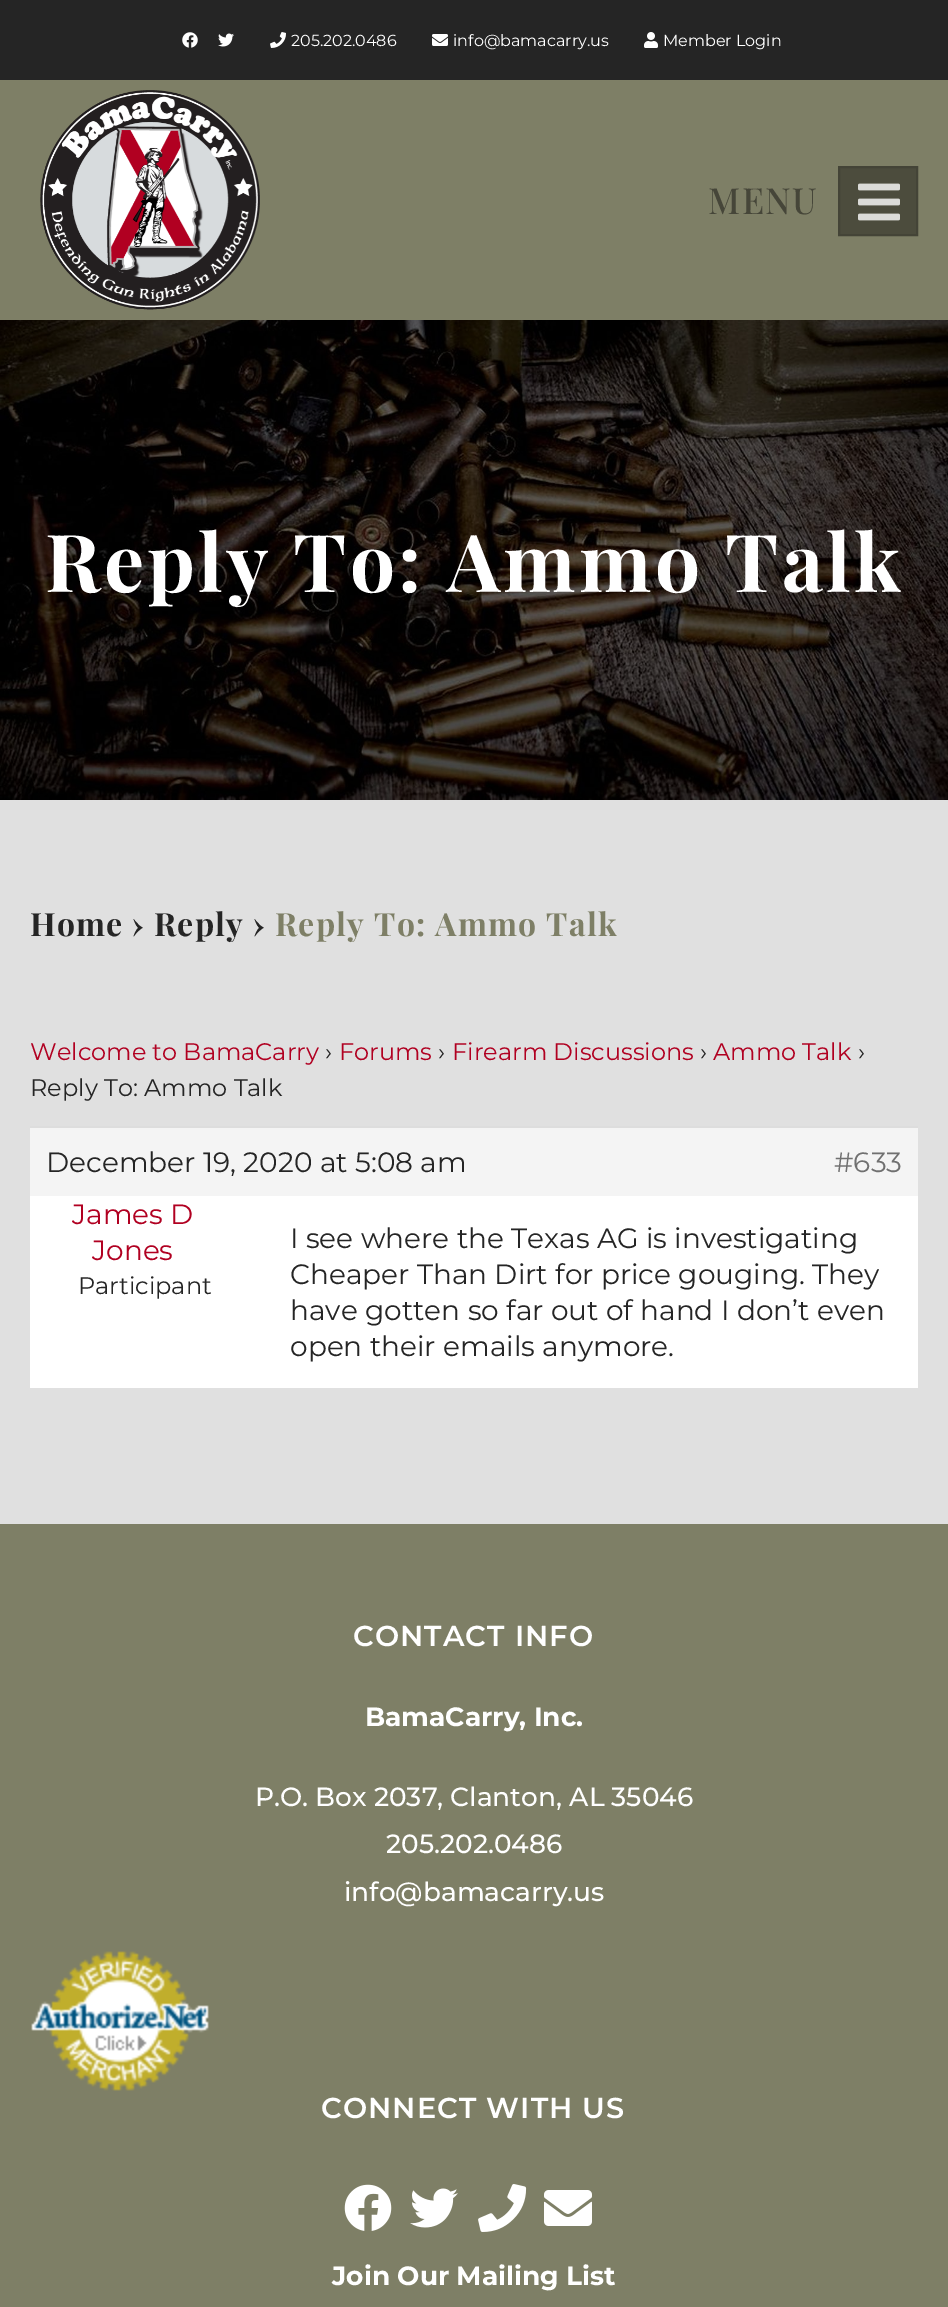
%!PS
<< /PageSize [948 2307] >> setpagedevice
/rgb { 3 { 255 div 3 1 roll } repeat setrgbcolor } def
/font { [ exch dup neg 0 0 3 -1 roll 0 0 ] selectfont } def
/picture { 5 dict begin { /h /w /y /x /name } { exch def } forall
  gsave x y translate w h scale
  w h 8 [w 0 0 h 0 0] name (r) file false 3 colorimage grestore end } def
0 2307 translate 1 -1 scale
4 setmiterlimit
224 224 224 rgb
0 0 948 2307 rectfill
37 37 37 rgb
0 0 948 80 rectfill
(img/1.rgb) 182 32 16 16 picture
(img/2.rgb) 218 33 16 14 picture
(img/3.rgb) 270 32 16 16 picture
(img/4.rgb) 432 34 16 12 picture
(img/5.rgb) 644 32 14 16 picture
126 127 102 rgb
0 80 948 240 rectfill
(img/6.rgb) 40 90 220 220 picture
76 76 61 rgb
839 167 moveto 917 167 lineto 917 235 lineto 839 235 lineto closepath gsave fill grestore
68 68 55 rgb
2 setlinewidth
stroke
(img/7.rgb) 858 183 42 38 picture
(img/8.rgb) 0 320 948 480 picture
[
  [30 1128 888 68 244 244 244]
  [30 1126 888 2 221 221 221]
  [30 1196 888 192 255 255 255]
  [0 1524 948 783 126 127 102]
] { aload pop rgb rectfill } forall
(img/9.rgb) 31 1951 178 140 picture
(img/10.rgb) 344 2184 48 47 picture
(img/11.rgb) 410 2188 48 40 picture
(img/12.rgb) 478 2184 49 48 picture
(img/13.rgb) 544 2190 48 36 picture
/Montserrat-Regular 16 font
255 255 255 rgb
[
  [(205.202.0486) 291 46]
  [(info@bamacarry.us) 453 46]
  [(Member Login) 663 46]
] { aload pop moveto show } forall
/PlayfairDisplay-Medium 36 font
70 70 57 rgb
708 214 moveto 1.5 0 (MENU) ashow
/PlayfairDisplay-Bold 80 font
255 255 255 rgb
45 592 moveto 3.25 0 (Reply To: Ammo Talk) ashow
/PlayfairDisplay-Bold 32 font
37 37 37 rgb
30 936 moveto 1.25 0 (Home › Reply ›) ashow
126 127 102 rgb
275 936 moveto 1.25 0 (Reply To: Ammo Talk) ashow
/Montserrat-Regular 24 font
177 0 33 rgb
30 1060 moveto (Welcome to BamaCarry) show
37 37 37 rgb
325 1060 moveto (›) show
177 0 33 rgb
339 1060 moveto (Forums) show
37 37 37 rgb
438 1060 moveto (›) show
177 0 33 rgb
452 1060 moveto (Firearm Discussions) show
37 37 37 rgb
700 1060 moveto (›) show
177 0 33 rgb
713 1060 moveto (Ammo Talk) show
37 37 37 rgb
858 1060 moveto (›) show
30 1096 moveto (Reply To: Ammo Talk) show
/Montserrat-Regular 28 font
46 1172 moveto (December 19, 2020 at 5:08 am) show
112 112 112 rgb
834 1172 moveto (#633) show
177 0 33 rgb
72 1224 moveto (James D) show
92 1260 moveto (Jones) show
/Montserrat-Regular 24 font
37 37 37 rgb
78 1294 moveto (Participant) show
/Montserrat-Regular 28 font
[
  [(I see where the Texas AG is investigating) 290 1248]
  [(Cheaper Than Dirt for price gouging. They) 290 1284]
  [(have gotten so far out of hand I don’t even) 290 1320]
  [(open their emails anymore.) 290 1356]
] { aload pop moveto show } forall
/Montserrat-SemiBold 28.75 font
255 255 255 rgb
353 1646 moveto 1.1 0 (CONTACT INFO) ashow
/Montserrat-Bold 26.4 font
365 1726 moveto (BamaCarry, Inc.) show
/Montserrat-Medium 26.4 font
[
  [(P.O. Box 2037, Clanton, AL 35046) 255 1806]
  [(205.202.0486) 386 1853]
  [(info@bamacarry.us) 344 1901]
] { aload pop moveto show } forall
/Montserrat-SemiBold 28.75 font
321 2118 moveto 1.1 0 (CONNECT WITH US) ashow
/Montserrat-Bold 26.4 font
332 2285 moveto (Join Our Mailing List) show
showpage
